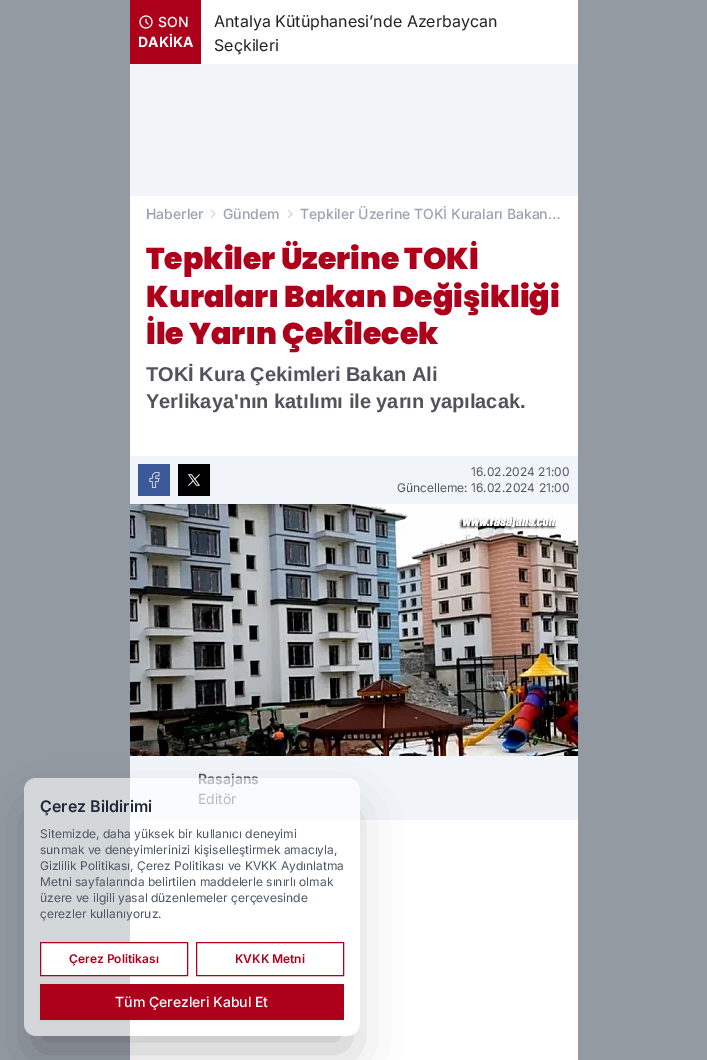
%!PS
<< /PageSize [707 1060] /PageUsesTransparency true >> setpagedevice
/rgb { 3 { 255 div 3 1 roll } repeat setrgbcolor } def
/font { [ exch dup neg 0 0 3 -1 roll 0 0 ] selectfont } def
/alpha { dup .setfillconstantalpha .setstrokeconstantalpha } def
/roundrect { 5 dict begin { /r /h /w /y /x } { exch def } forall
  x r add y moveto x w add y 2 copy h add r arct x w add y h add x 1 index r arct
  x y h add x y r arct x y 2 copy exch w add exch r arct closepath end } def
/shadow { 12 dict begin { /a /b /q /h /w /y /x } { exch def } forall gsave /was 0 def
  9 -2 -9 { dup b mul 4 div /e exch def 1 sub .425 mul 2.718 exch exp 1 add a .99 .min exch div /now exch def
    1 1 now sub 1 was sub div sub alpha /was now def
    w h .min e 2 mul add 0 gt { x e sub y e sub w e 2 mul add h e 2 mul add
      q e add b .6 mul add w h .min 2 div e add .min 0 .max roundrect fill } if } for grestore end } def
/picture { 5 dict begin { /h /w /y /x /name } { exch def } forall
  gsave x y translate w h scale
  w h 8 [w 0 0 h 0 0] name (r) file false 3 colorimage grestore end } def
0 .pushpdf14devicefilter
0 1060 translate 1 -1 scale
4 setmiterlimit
148 154 162 rgb
0 0 707 1060 rectfill
[
  [130 64 448 132 241 245 249]
  [201 0 377 64 255 255 255]
  [130 0 71 64 172 0 27]
] { aload pop rgb rectfill } forall
(img/1.rgb) 139 15 14 14 picture
255 255 255 rgb
130 196 448 864 rectfill
209 213 219 rgb
1 setlinecap
1 setlinejoin
211.5 210.5 moveto 215 214 lineto 211.5 217.5 lineto stroke
288.5 210.5 moveto 292 214 lineto 288.5 217.5 lineto stroke
241 245 249 rgb
130 456 448 48 rectfill
59 89 152 rgb
138 464 32 32 rectfill
(img/2.rgb) 149 472 11 16 picture
0 0 0 rgb
178 464 32 32 rectfill
(img/3.rgb) 188 474 12 12 picture
(img/4.rgb) 130 504 448 252 picture
241 245 249 rgb
130 756 448 64 rectfill
gsave
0 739 moveto 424 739 lineto 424 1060 lineto 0 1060 lineto closepath 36 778 moveto 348 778 lineto 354.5 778 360 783.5 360 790 curveto 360 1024 lineto 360 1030.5 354.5 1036 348 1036 curveto 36 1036 lineto 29.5 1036 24 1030.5 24 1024 curveto 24 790 lineto 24 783.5 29.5 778 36 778 curveto closepath eoclip newpath
0 0 0 rgb
36 815 312 234 0 25 0.25 shadow
grestore
/Inter-Medium 14 font
255 255 255 rgb
158 27 moveto (SON) show
/Inter-Bold 14 font
138 47 moveto (DAKİKA) show
/Inter-Regular 16 font
34 34 34 rgb
214 27 moveto (Antalya Kütüphanesi’nde Azerbaycan) show
214 51 moveto (Seçkileri) show
/Inter-Medium 14 font
156 163 175 rgb
[
  [(Haberler) 146 219]
  [(Gündem) 223 219]
  [(Tepkiler Üzerine TOKİ Kuraları Bakan…) 300 219]
] { aload pop moveto show } forall
/Poppins-Black 30 font
172 0 27 rgb
[
  [(Tepkiler Üzerine TOKİ) 146 269]
  [(Kuraları Bakan Değişikliği) 146 307]
  [(İle Yarın Çekilecek) 146 344]
] { aload pop moveto show } forall
/LiberationSans-Bold 20 font
82 82 91 rgb
146 381 moveto (TOKİ Kura Çekimleri Bakan Ali) show
146 408 moveto (Yerlikaya'nın katılımı ile yarın yapılacak.) show
/Inter-Regular 12 font
75 85 99 rgb
471 476 moveto (16.02.2024 21:00) show
397 492 moveto (Güncelleme: 16.02.2024 21:00) show
/Inter-SemiBold 14 font
198 784 moveto (Rasajans) show
/Inter-Regular 14 font
198 804 moveto (Editör) show
0.6 alpha
255 255 255 rgb
24 778 336 258 12 roundrect fill
/Inter-SemiBold 16 font
1 alpha
31 41 55 rgb
40 812 moveto (Çerez Bildirimi) show
/Inter-Regular 12 font
75 85 99 rgb
[
  [(Sitemizde, daha yüksek bir kullanıcı deneyimi) 40 838]
  [(sunmak ve deneyimlerinizi kişiselleştirmek amacıyla,) 40 854]
  [(Gizlilik Politikası, Çerez Politikası ve KVKK Aydınlatma) 40 870]
  [(Metni sayfalarında belirtilen maddelerle sınırlı olmak) 40 886]
  [(üzere ve ilgili yasal düzenlemeler çerçevesinde) 40 902]
  [(çerezler kullanıyoruz.) 40 918]
] { aload pop moveto show } forall
255 255 255 rgb
41 943 89 32 rectfill
172 0 27 rgb
0 setlinecap
0 setlinejoin
40.5 942.5 147 33 rectstroke
/Inter-SemiBold 12 font
69 963 moveto (Çerez Politikası) show
196.5 942.5 147 33 rectstroke
235 963 moveto (KVKK Metni) show
0 0 0 rgb
40 985 304 36 0 1 0.05 shadow
172 0 27 rgb
40 984 304 36 rectfill
/Inter-Medium 14 font
255 255 255 rgb
115 1007 moveto (Tüm Çerezleri Kabul Et) show
.poppdf14devicefilter showpage
